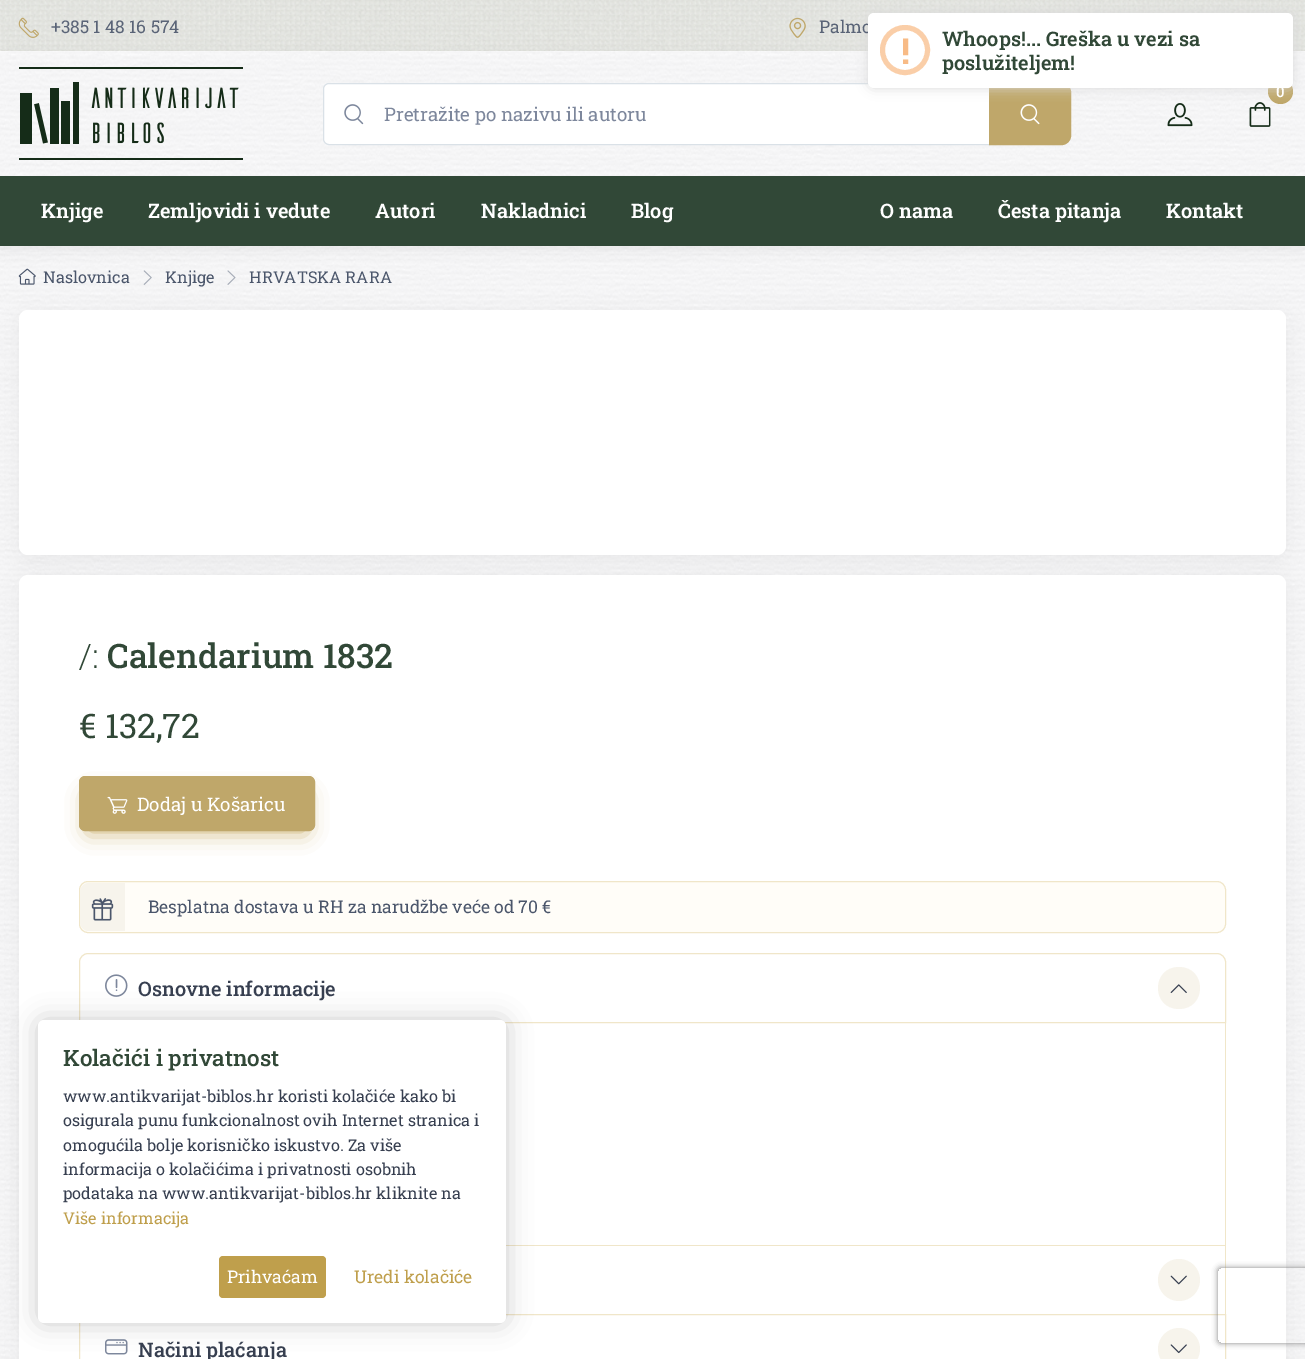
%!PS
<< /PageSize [1305 1359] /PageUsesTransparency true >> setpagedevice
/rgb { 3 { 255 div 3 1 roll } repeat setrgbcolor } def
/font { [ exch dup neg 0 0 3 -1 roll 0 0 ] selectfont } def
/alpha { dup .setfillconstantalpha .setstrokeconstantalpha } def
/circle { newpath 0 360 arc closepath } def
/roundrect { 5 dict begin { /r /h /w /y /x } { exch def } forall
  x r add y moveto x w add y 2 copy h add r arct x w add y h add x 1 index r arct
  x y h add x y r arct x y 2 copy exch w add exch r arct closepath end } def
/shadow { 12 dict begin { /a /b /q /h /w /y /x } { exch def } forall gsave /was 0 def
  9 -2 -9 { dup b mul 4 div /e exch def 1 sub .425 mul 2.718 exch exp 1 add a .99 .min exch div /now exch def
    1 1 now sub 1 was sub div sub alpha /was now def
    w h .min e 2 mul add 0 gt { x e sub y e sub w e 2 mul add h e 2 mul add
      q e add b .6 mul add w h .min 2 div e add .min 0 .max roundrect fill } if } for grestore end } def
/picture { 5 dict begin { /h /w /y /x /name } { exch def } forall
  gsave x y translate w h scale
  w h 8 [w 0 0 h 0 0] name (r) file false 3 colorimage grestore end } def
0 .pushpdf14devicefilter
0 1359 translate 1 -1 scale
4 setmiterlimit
255 255 255 rgb
0 0 1305 1359 rectfill
(img/1.rgb) 0 0 1305 1359 picture
(img/2.rgb) 0 0 1305 52 picture
0 0 0 rgb
1 58 1303 192 0 7.5 0.06 shadow
(img/3.rgb) 18 17 21 21 picture
(img/4.rgb) 789 17 17 21 picture
(img/5.rgb) 0 51 1305 125 picture
(img/7.rgb) 1249 102 22 25 picture
191 167 106 rgb
1280.5 91.5 12.5 circle fill
(img/8.rgb) 1167 103 26 24 picture
255 255 255 rgb
329 83.5 moveto 989.5 83.5 lineto 989.5 144.5 lineto 329 144.5 lineto 326 144.5 323.5 142 323.5 139 curveto 323.5 89 lineto 323.5 86 326 83.5 329 83.5 curveto closepath gsave fill grestore
218 225 231 rgb
stroke
191 167 106 rgb
989.5 83.5 moveto 1062 83.5 lineto 1066.5 83.5 1070.5 87.5 1070.5 92 curveto 1070.5 136 lineto 1070.5 140.5 1066.5 144.5 1062 144.5 curveto 989.5 144.5 lineto closepath gsave fill grestore
stroke
(img/10.rgb) 1020 104 20 21 picture
217 217 217 rgb
868 13 425 75 6 6 1 shadow
(img/6.rgb) 19 67 224 93 picture
(img/9.rgb) 344 104 20 21 picture
49 72 55 rgb
0 176 1305 70 rectfill
(img/11.rgb) 18 268 18 17 picture
(img/12.rgb) 143 270 9 15 picture
(img/13.rgb) 227 270 9 15 picture
0 0 0 rgb
20 316 1265 243 8 12.5 0.05 shadow
255 255 255 rgb
19 310 1267 245 9 roundrect fill
0 0 0 rgb
20 581 1265 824 8 12.5 0.05 shadow
255 255 255 rgb
19 575 1267 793 9 roundrect fill
191 159 76 rgb
89 796 216 35 0 11 0.9 shadow
191 167 106 rgb
79.5 776.5 235 54 5.5 roundrect gsave fill grestore
stroke
(img/14.rgb) 107 796 21 18 picture
255 253 248 rgb
79.5 881.5 1146 51 8.5 roundrect gsave fill grestore
240 230 201 rgb
stroke
247 244 236 rgb
89 883 moveto 125 883 lineto 125 931 lineto 89 931 lineto 84 931 80 927 80 922 curveto 80 892 lineto 80 887 84 883 89 883 curveto closepath fill
(img/15.rgb) 91 898 23 23 picture
240 230 201 rgb
88 953.5 moveto 1217 953.5 lineto 1221.5 953.5 1225.5 957.5 1225.5 962 curveto 1225.5 1022.5 lineto 79.5 1022.5 lineto 79.5 962 lineto 79.5 957.5 83.5 953.5 88 953.5 curveto closepath stroke
(img/16.rgb) 105 974 23 23 picture
247 244 236 rgb
1179 1009 moveto 1151 1009 1151 967 1179 967 curveto 1207 967 1207 1009 1179 1009 curveto closepath fill
(img/17.rgb) 1170 984 17 9 picture
[
  [1225 1023 1 222 240 230 201]
  [506 1245 720 1 240 230 201]
  [1225 1245 1 69 240 230 201]
] { aload pop rgb rectfill } forall
247 244 236 rgb
1179 1280 21 circle fill
(img/18.rgb) 1170 1275 17 10 picture
240 230 201 rgb
79.5 1314.5 1146 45 rectstroke
(img/19.rgb) 105 1339 23 16 picture
247 244 236 rgb
1179 1349 21 circle fill
(img/20.rgb) 1170 1344 17 10 picture
0 0 0 rgb
38 1020 468 303 6 12.5 0.2 shadow
255 255 255 rgb
38 1020 468 303 6 roundrect fill
191 159 76 rgb
219 1256 107 42 4 roundrect fill
gsave
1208 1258 moveto 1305 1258 lineto 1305 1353 lineto 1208 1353 lineto closepath 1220.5 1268 moveto 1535.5 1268 lineto 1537 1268 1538 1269 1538 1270.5 curveto 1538 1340.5 lineto 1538 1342 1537 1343 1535.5 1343 curveto 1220.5 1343 lineto 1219 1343 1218 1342 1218 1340.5 curveto 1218 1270.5 lineto 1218 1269 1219 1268 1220.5 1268 curveto closepath eoclip newpath
128 128 128 rgb
1218 1268 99 75 2.5 3 1 shadow
grestore
/RobotoSlab-Regular 17.5 font
90 100 119 rgb
51 33 moveto (+385 1 48 16 574) show
819 33 moveto (Palmo) show
255 255 255 rgb
868 13 425 75 6 roundrect fill
250 206 168 rgb
5 setlinewidth
905 50 22.5 circle stroke
/RobotoSlab-Bold 36 font
248 187 134 rgb
901 64 moveto (!) show
/RobotoSlab-SemiBold 20 font
49 72 55 rgb
942 46 moveto (Whoops!... Greška u vezi sa) show
942 70 moveto (poslužiteljem!) show
/RobotoSlab-Medium 15 font
255 255 255 rgb
1276 97 moveto (0) show
/RobotoSlab-Regular 18.75 font
125 135 156 rgb
384 121 moveto (Pretražite po nazivu ili autoru) show
/RobotoSlab-SemiBold 20 font
255 255 255 rgb
[
  [(Knjige) 41 218]
  [(Zemljovidi i vedute) 148 218]
  [(Autori) 375 218]
  [(Nakladnici) 481 218]
  [(Blog) 631 218]
  [(O nama) 880 218]
  [(Česta pitanja) 998 218]
  [(Kontakt) 1166 218]
] { aload pop moveto show } forall
/RobotoSlab-Regular 16.25 font
75 86 107 rgb
[
  [(Naslovnica) 43 283]
  [(Knjige) 165 283]
  [(HRVATSKA RARA) 249 283]
] { aload pop moveto show } forall
/RobotoSlab-Light 33.75 font
49 72 55 rgb
79 668 moveto (/:) show
/RobotoSlab-Medium 33.75 font
107 668 moveto (Calendarium 1832) show
/RobotoSlab-Regular 33.75 font
79 738 moveto (€ 132,72) show
/RobotoSlab-Regular 18.75 font
255 255 255 rgb
137 811 moveto (Dodaj u Košaricu) show
/RobotoSlab-Regular 17.5 font
75 86 107 rgb
148 913 moveto (Besplatna dostava u RH za narudžbe veće od 70 €) show
/RobotoSlab-Medium 20 font
55 63 80 rgb
138 996 moveto (Osnovne informacije) show
138 1357 moveto (Načini plaćanja) show
/RobotoSlab-Medium 22.5 font
49 72 55 rgb
63 1066 moveto (Kolačići i privatnost) show
/RobotoSlab-Regular 16.25 font
55 63 80 rgb
[
  [(www.antikvarijat-biblos.hr koristi kolačiće kako bi) 63 1102]
  [(osigurala punu funkcionalnost ovih Internet stranica i) 63 1126]
  [(omogućila bolje korisničko iskustvo. Za više) 63 1151]
  [(informacija o kolačićima i privatnosti osobnih) 63 1175]
  [(podataka na www.antikvarijat-biblos.hr kliknite na) 63 1199]
] { aload pop moveto show } forall
191 159 76 rgb
63 1224 moveto (Više informacija) show
/RobotoSlab-Regular 17.5 font
255 255 255 rgb
227 1283 moveto (Prihvaćam) show
191 159 76 rgb
354 1283 moveto (Uredi kolačiće) show
.poppdf14devicefilter showpage
